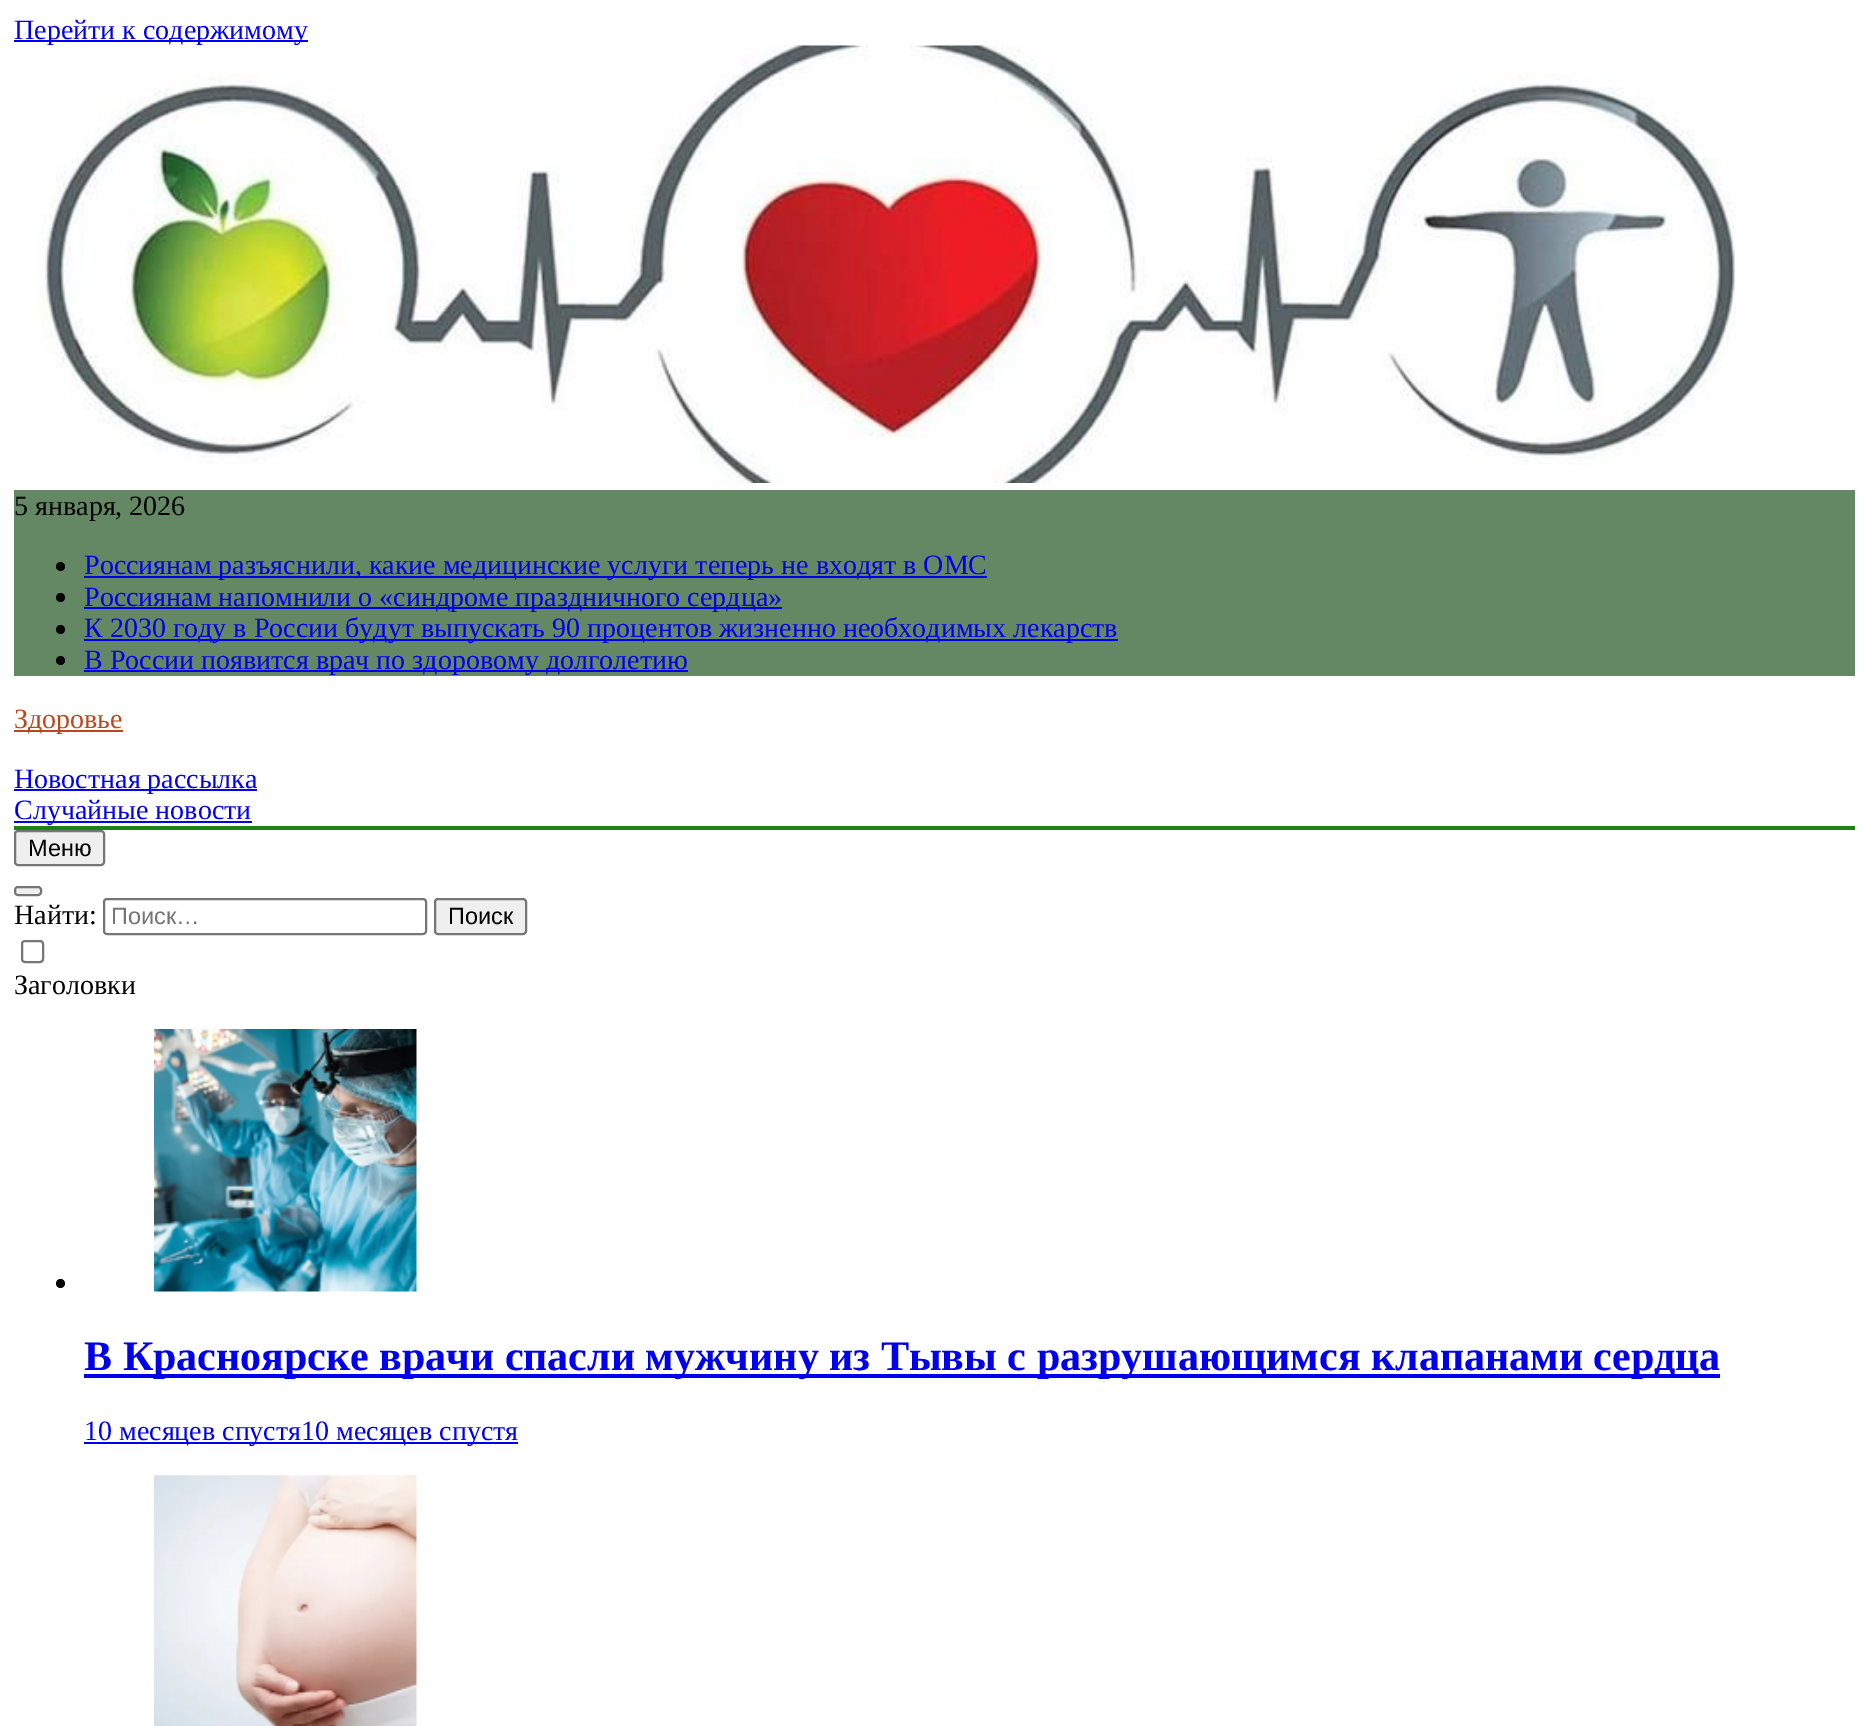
%!PS
<< /PageSize [1869 1726] >> setpagedevice
/rgb { 3 { 255 div 3 1 roll } repeat setrgbcolor } def
/font { [ exch dup neg 0 0 3 -1 roll 0 0 ] selectfont } def
/circle { newpath 0 360 arc closepath } def
/roundrect { 5 dict begin { /r /h /w /y /x } { exch def } forall
  x r add y moveto x w add y 2 copy h add r arct x w add y h add x 1 index r arct
  x y h add x y r arct x y 2 copy exch w add exch r arct closepath end } def
/picture { 5 dict begin { /h /w /y /x /name } { exch def } forall
  gsave x y translate w h scale
  w h 8 [w 0 0 h 0 0] name (r) file false 3 colorimage grestore end } def
0 1726 translate 1 -1 scale
4 setmiterlimit
255 255 255 rgb
0 0 1869 1726 rectfill
0 0 238 rgb
14 40 294 2 rectfill
100 136 99 rgb
14 490 1841 186 rectfill
0 0 0 rgb
60.5 566.5 4.5 circle fill
0 0 238 rgb
84 576 903 2 rectfill
0 0 0 rgb
60.5 597.5 4.5 circle fill
0 0 238 rgb
84 607 698 2 rectfill
0 0 0 rgb
60.5 629.5 4.5 circle fill
0 0 238 rgb
84 639 1034 2 rectfill
0 0 0 rgb
60.5 660.5 4.5 circle fill
[
  [84 670 604 2 0 0 238]
  [14 730 109 2 186 71 29]
  [14 789 243 2 0 0 238]
  [14 821 238 2 0 0 238]
  [14 826 1841 4 27 132 21]
] { aload pop rgb rectfill } forall
239 239 239 rgb
15 831 89 34 3 roundrect gsave fill grestore
118 118 118 rgb
2 setlinewidth
stroke
239 239 239 rgb
15 887 26 8 3 roundrect gsave fill grestore
118 118 118 rgb
stroke
104 899 322 35 3 roundrect stroke
239 239 239 rgb
435 899 91 35 3 roundrect gsave fill grestore
118 118 118 rgb
stroke
22 941 21 21 3 roundrect stroke
0 0 0 rgb
60.5 1283.5 4.5 circle fill
(img/2.rgb) 154 1029 263 263 picture
0 0 238 rgb
84 1374 1636 4 rectfill
84 1442 434 2 rectfill
(img/3.rgb) 154 1475 263 251 picture
/LiberationSerif-Regular 28 font
14 39 moveto (Перейти к содержимому) show
(img/1.rgb) 35 45 1701 438 picture
0 0 0 rgb
14 515 moveto (5 января, 2026) show
0 0 238 rgb
[
  [(Россиянам разъяснили, какие медицинские услуги теперь не входят в ОМС) 84 574]
  [(Россиянам напомнили о «синдроме праздничного сердца») 84 606]
  [(К 2030 году в России будут выпускать 90 процентов жизненно необходимых лекарств) 84 637]
  [(В России появится врач по здоровому долголетию) 84 669]
] { aload pop moveto show } forall
186 71 29 rgb
14 728 moveto (Здоровье) show
0 0 238 rgb
14 788 moveto (Новостная рассылка) show
14 819 moveto (Случайные новости) show
/LiberationSans-Regular 23.5 font
0 0 0 rgb
28 856 moveto (Меню) show
/LiberationSerif-Regular 28 font
14 924 moveto (Найти:) show
/LiberationSans-Regular 23.5 font
117 117 117 rgb
111 924 moveto (Поиск…) show
0 0 0 rgb
448 924 moveto (Поиск) show
/LiberationSerif-Regular 28 font
14 994 moveto (Заголовки) show
/LiberationSerif-Bold 42 font
0 0 238 rgb
84 1370 moveto (В Красноярске врачи спасли мужчину из Тывы с разрушающимся клапанами сердца) show
/LiberationSerif-Regular 28 font
84 1440 moveto (10 месяцев спустя10 месяцев спустя) show
showpage
